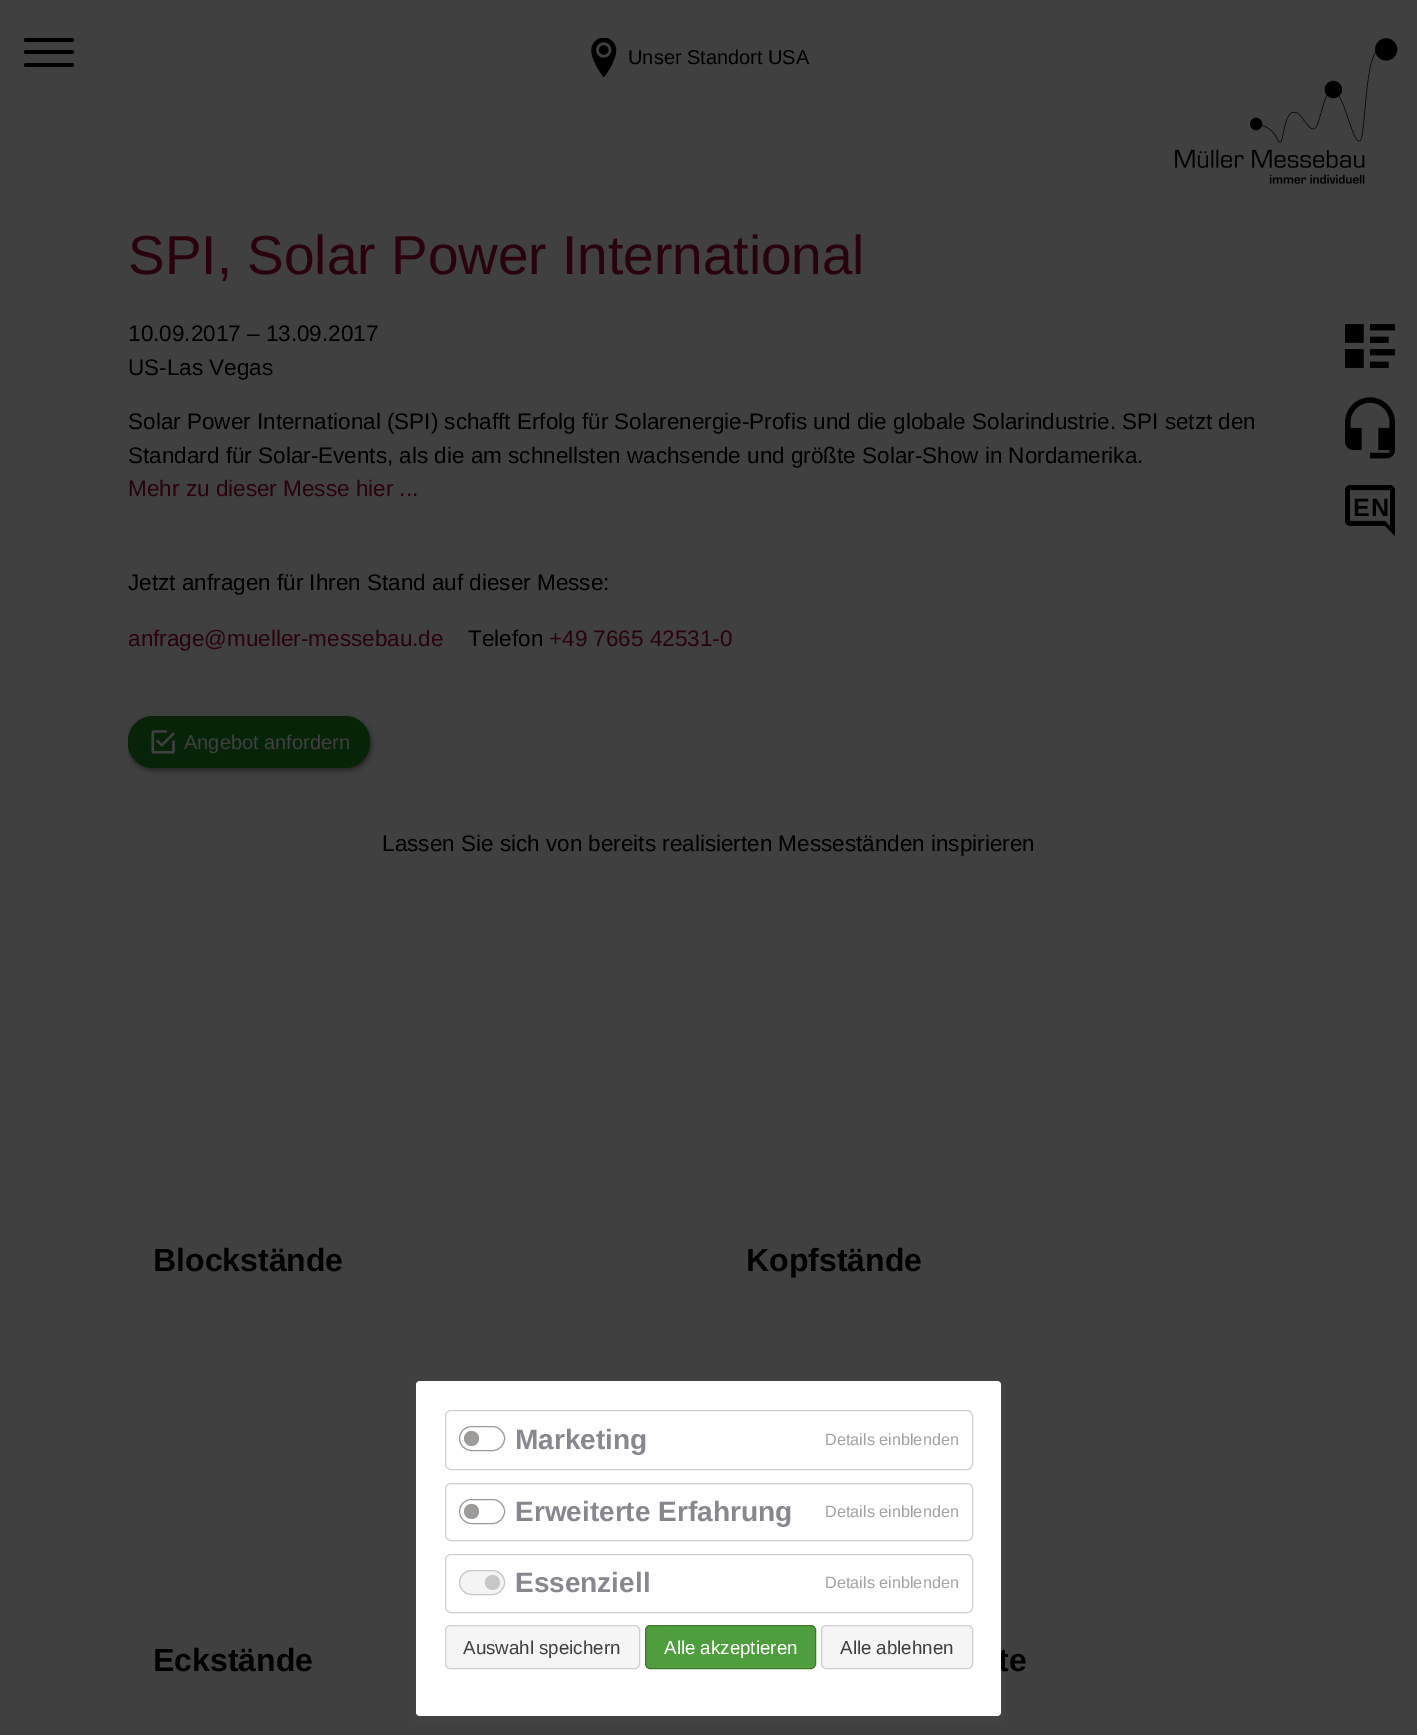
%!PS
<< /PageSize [1417 1735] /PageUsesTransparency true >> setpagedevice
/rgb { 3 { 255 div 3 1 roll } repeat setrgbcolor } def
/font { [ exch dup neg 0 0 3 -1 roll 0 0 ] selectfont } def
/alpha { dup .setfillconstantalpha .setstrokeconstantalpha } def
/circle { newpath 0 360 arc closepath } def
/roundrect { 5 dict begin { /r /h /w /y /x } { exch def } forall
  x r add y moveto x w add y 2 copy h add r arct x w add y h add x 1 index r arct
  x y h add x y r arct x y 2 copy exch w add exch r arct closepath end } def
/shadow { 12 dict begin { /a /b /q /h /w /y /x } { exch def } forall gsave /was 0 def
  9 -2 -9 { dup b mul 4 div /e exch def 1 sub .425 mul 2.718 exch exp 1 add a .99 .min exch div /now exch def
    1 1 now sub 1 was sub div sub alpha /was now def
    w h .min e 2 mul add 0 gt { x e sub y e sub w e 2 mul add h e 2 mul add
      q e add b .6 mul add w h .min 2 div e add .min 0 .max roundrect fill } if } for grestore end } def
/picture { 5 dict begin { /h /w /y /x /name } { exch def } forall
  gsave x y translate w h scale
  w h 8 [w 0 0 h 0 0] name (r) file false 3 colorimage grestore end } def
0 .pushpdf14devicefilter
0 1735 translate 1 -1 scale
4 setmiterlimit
64 64 64 rgb
0 0 1417 1735 rectfill
0 0 0 rgb
24 38 50 4 2 roundrect fill
24 50 50 4 2 roundrect fill
24 63 50 4 2 roundrect fill
(img/1.rgb) 591 38 26 40 picture
(img/2.rgb) 1175 38 223 146 picture
(img/3.rgb) 1345 324 50 44 picture
(img/4.rgb) 1345 397 50 62 picture
(img/5.rgb) 1345 485 50 52 picture
gsave
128 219 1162 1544 rectclip
129 719 242 51 25 3 0.5 shadow
grestore
7 36 8 rgb
128 716 242 52 25 roundrect fill
(img/6.rgb) 151 730 24 24 picture
99 99 99 rgb
416 1384 585 335 4 5 0.2 shadow
/LiberationSans-Regular 20 font
0 0 0 rgb
628 64 moveto (Unser Standort USA) show
/LiberationSans-Bold 25 font
1353 516 moveto 1 0 (EN) ashow
/LiberationSans-Regular 55 font
41 2 12 rgb
128 274 moveto (SPI, Solar Power International) show
/LiberationSans-Regular 22.5 font
0 0 0 rgb
[
  [(10.09.2017 – 13.09.2017) 128 341]
  [(US-Las Vegas) 128 375]
  [(Solar Power International \(SPI\) schafft Erfolg für Solarenergie-Profis und die globale Solarindustrie. SPI setzt den) 128 429]
  [(Standard für Solar-Events, als die am schnellsten wachsende und größte Solar-Show in Nordamerika.) 128 463]
] { aload pop moveto show } forall
41 2 12 rgb
128 496 moveto (Mehr zu dieser Messe hier ...) show
0 0 0 rgb
128 590 moveto (Jetzt anfragen für Ihren Stand auf dieser Messe:) show
41 2 12 rgb
128 646 moveto (anfrage@mueller-messebau.de) show
0 0 0 rgb
468 646 moveto (Telefon) show
41 2 12 rgb
549 646 moveto (+49 7665 42531-0) show
/LiberationSans-Regular 20 font
64 64 64 rgb
184 749 moveto (Angebot anfordern) show
/LiberationSans-Regular 22.5 font
0 0 0 rgb
382 851 moveto (Lassen Sie sich von bereits realisierten Messeständen inspirieren) show
/LiberationSans-Bold 32 font
[
  [(Blockstände) 153 1271]
  [(Kopfstände) 746 1271]
  [(Eckstände) 153 1671]
  [(te) 998 1671]
] { aload pop moveto show } forall
255 255 255 rgb
416 1381 585 335 4 roundrect fill
208 208 208 rgb
445.5 1410.5 527 59 5.5 roundrect stroke
156 155 153 rgb
459.5 1426.5 45 24 12 roundrect stroke
/LiberationSans-Bold 28 font
136 135 144 rgb
515 1449 moveto (Marketing) show
156 155 153 rgb
471.5 1438.5 7.5 circle fill
/LiberationSans-Regular 16.25 font
162 162 162 rgb
825 1445 moveto (Details einblenden) show
208 208 208 rgb
445.5 1483.5 527 57 5.5 roundrect stroke
156 155 153 rgb
459.5 1499.5 45 24 12 roundrect stroke
/LiberationSans-Bold 28 font
136 135 144 rgb
515 1521 moveto (Erweiterte Erfahrung) show
156 155 153 rgb
471.5 1511.5 7.5 circle fill
/LiberationSans-Regular 16.25 font
162 162 162 rgb
825 1517 moveto (Details einblenden) show
208 208 208 rgb
445.5 1554.5 527 58 5.5 roundrect stroke
244 244 244 rgb
459.5 1570.5 45 24 12 roundrect gsave fill grestore
200 199 197 rgb
stroke
/LiberationSans-Bold 28 font
136 135 144 rgb
515 1592 moveto (Essenziell) show
200 199 197 rgb
492.5 1582.5 7.5 circle fill
/LiberationSans-Regular 16.25 font
162 162 162 rgb
825 1588 moveto (Details einblenden) show
245 245 245 rgb
445.5 1625.5 194 43 4.5 roundrect gsave fill grestore
207 207 207 rgb
stroke
/LiberationSans-Regular 18.75 font
64 64 64 rgb
463 1654 moveto (Auswahl speichern) show
78 158 62 rgb
645.5 1625.5 170 43 4.5 roundrect gsave fill grestore
62 120 48 rgb
stroke
255 255 255 rgb
664 1654 moveto (Alle akzeptieren) show
245 245 245 rgb
821.5 1625.5 151 43 4.5 roundrect gsave fill grestore
207 207 207 rgb
stroke
64 64 64 rgb
840 1654 moveto (Alle ablehnen) show
.poppdf14devicefilter showpage
